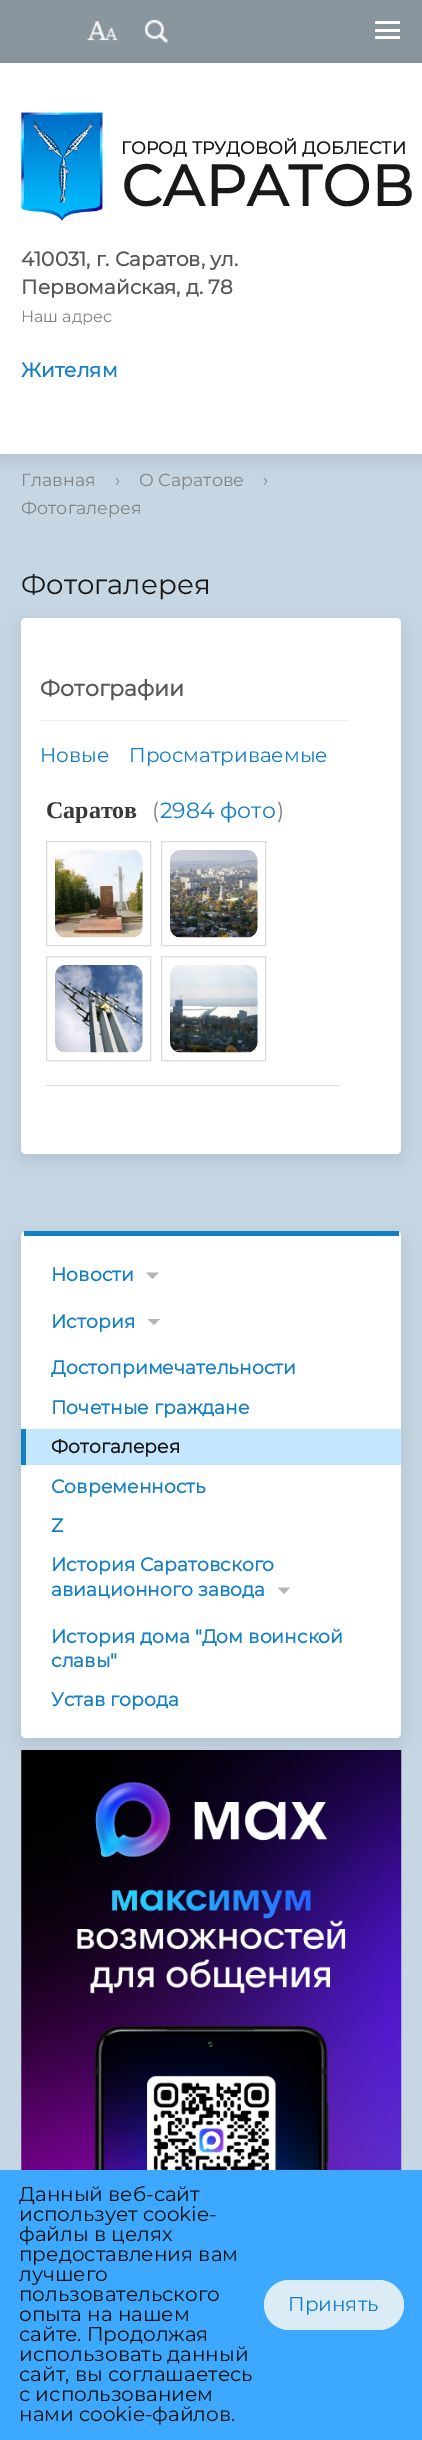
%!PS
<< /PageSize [422 2440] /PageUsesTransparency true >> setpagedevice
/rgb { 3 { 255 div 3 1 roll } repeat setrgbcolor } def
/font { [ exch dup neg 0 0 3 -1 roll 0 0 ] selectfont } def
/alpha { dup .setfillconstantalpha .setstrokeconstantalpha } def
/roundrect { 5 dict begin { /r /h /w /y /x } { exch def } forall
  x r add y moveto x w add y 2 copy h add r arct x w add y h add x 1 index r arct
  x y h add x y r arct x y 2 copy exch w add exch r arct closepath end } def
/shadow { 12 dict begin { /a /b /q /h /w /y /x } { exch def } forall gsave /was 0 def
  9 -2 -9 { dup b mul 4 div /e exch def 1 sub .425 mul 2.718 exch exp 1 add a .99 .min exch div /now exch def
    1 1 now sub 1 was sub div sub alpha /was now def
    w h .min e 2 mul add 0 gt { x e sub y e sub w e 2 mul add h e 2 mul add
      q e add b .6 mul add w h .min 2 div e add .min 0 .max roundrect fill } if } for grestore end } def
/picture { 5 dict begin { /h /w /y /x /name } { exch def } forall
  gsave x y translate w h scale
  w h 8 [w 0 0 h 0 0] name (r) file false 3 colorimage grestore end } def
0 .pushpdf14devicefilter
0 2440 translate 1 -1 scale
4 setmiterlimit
198 214 227 rgb
0 0 422 2440 rectfill
[
  [0 0 422 63 138 150 158]
  [375 29 25 3 255 255 255]
  [375 21 25 3 255 255 255]
  [375 36 25 3 255 255 255]
] { aload pop rgb rectfill } forall
0 0 0 rgb
0 69 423 391 0 9.5 0.1 shadow
(img/1.rgb) 87 21 31 20 picture
(img/2.rgb) 144 19 24 24 picture
255 255 255 rgb
0 63 422 391 rectfill
(img/3.rgb) 21 112 82 110 picture
0 0 0 rgb
21 624 380 536 5 9.5 0.1 shadow
255 255 255 rgb
21 618 380 536 5 roundrect fill
236 236 236 rgb
40 720 308 1 rectfill
219 219 219 rgb
46.5 841.5 104 104 rectstroke
(img/4.rgb) 55 850 88 88 picture
161.5 841.5 104 104 rectstroke
(img/5.rgb) 170 850 88 88 picture
46.5 956.5 104 104 rectstroke
(img/6.rgb) 55 965 88 88 picture
161.5 956.5 104 104 rectstroke
(img/7.rgb) 170 965 88 88 picture
46 1085 293 1 rectfill
0 0 0 rgb
21 1238 380 506 5 9.5 0.1 shadow
255 255 255 rgb
21 1231 380 507 5 roundrect fill
21 127 196 rgb
24 1231 375 5 rectfill
181 181 181 rgb
146 1272.5 moveto 159 1272.5 lineto 152.5 1279 lineto closepath 147.5 1319 moveto 160 1319 lineto 154 1325 lineto closepath fill
197 230 255 rgb
26 1429 375 36 rectfill
21 127 196 rgb
21 1429 5 36 rectfill
181 181 181 rgb
277.5 1587.5 moveto 290 1587.5 lineto 284 1594 lineto closepath fill
(img/8.rgb) 21 1750 381 420 picture
61 168 255 rgb
0 2170 422 270 rectfill
220 236 246 rgb
264 2280 140 50 25 roundrect fill
/Montserrat-Bold 17.5 font
24 24 24 rgb
121 154 moveto (ГОРОД ТРУДОВОЙ ДОБЛЕСТИ) show
/Montserrat-Bold 57.5 font
121 206 moveto (САРАТОВ) show
/Montserrat-Bold 20 font
87 87 87 rgb
21 266 moveto (410031, г. Саратов, ул.) show
21 294 moveto (Первомайская, д. 78) show
/Montserrat-Thin 16 font
130 130 130 rgb
21 322 moveto (Наш адрес) show
/Montserrat-Bold 20 font
21 127 196 rgb
21 377 moveto (Жителям) show
/Montserrat-Thin 17.5 font
130 130 130 rgb
[
  [(Главная) 21 486]
  [(›) 115 486]
  [(О Саратове) 139 486]
  [(›) 263 486]
  [(Фотогалерея) 21 514]
] { aload pop moveto show } forall
/Montserrat-Thin 27.5 font
24 24 24 rgb
21 594 moveto (Фотогалерея) show
/Montserrat-Bold 22 font
87 87 87 rgb
40 696 moveto (Фотографии) show
/Montserrat-Thin 20 font
21 127 196 rgb
40 762 moveto (Новые) show
129 762 moveto (Просматриваемые) show
/LiberationSerif-Bold 24 font
55 55 55 rgb
46 818 moveto (Саратов) show
/Montserrat-Thin 22 font
130 130 130 rgb
152 818 moveto (\() show
21 127 196 rgb
160 818 moveto (2984 фото) show
130 130 130 rgb
277 818 moveto (\)) show
/Montserrat-Bold 18.75 font
21 127 196 rgb
[
  [(Новости) 51 1281]
  [(История) 51 1328]
  [(Достопримечательности) 51 1374]
  [(Почетные граждане) 51 1414]
] { aload pop moveto show } forall
24 24 24 rgb
51 1453 moveto (Фотогалерея) show
21 127 196 rgb
[
  [(Современность) 51 1493]
  [(Z) 51 1532]
  [(История Саратовского) 51 1571]
  [(авиационного завода) 51 1596]
  [(История дома "Дом воинской) 51 1643]
  [(славы") 51 1667]
  [(Устав города) 51 1706]
] { aload pop moveto show } forall
/Montserrat-Thin 20 font
17 17 17 rgb
[
  [(Данный веб-сайт) 19 2201]
  [(использует cookie-) 19 2221]
  [(файлы в целях) 19 2241]
  [(предоставления вам) 19 2261]
  [(лучшего) 19 2281]
  [(пользовательского) 19 2301]
  [(опыта на нашем) 19 2321]
  [(сайте. Продолжая) 19 2341]
  [(использовать данный) 19 2361]
  [(сайт, вы соглашаетесь) 19 2381]
  [(с использованием) 19 2401]
  [(нами cookie-файлов.) 19 2421]
] { aload pop moveto show } forall
21 127 196 rgb
288 2311 moveto (Принять) show
.poppdf14devicefilter showpage
